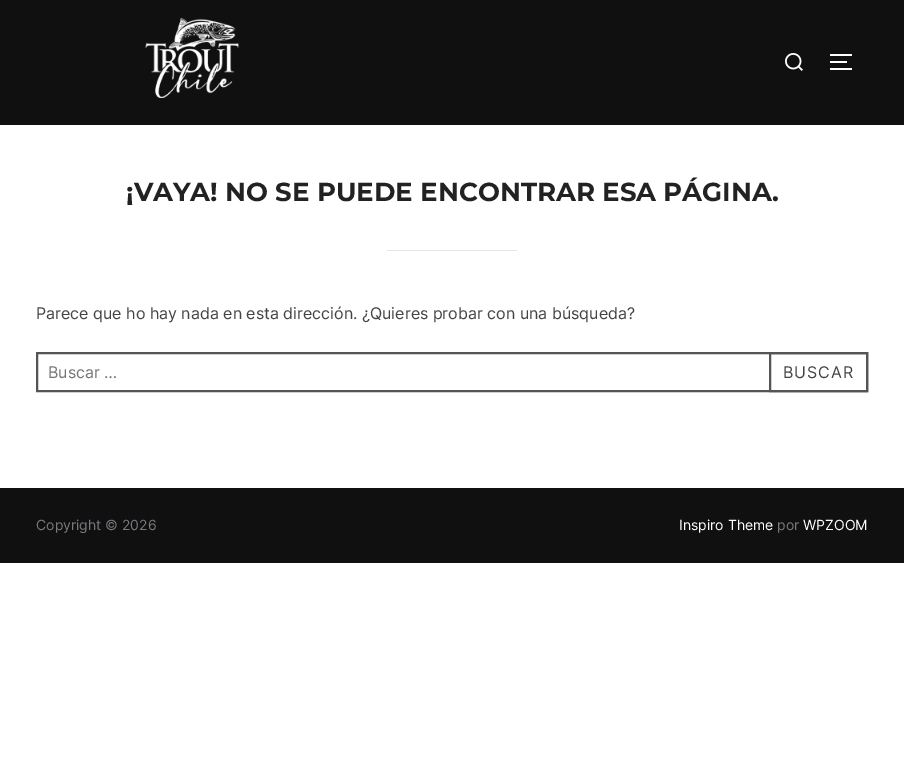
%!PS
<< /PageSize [904 772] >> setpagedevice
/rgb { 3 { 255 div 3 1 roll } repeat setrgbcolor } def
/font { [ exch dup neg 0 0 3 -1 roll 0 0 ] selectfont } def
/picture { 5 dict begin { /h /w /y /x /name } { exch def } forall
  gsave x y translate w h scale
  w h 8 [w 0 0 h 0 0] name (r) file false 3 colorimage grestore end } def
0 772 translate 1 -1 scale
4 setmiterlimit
255 255 255 rgb
0 0 904 772 rectfill
16 16 16 rgb
0 0 904 125 rectfill
(img/1.rgb) 145 18 94 80 picture
(img/2.rgb) 785 53 18 18 picture
[
  [830 54 22 2 255 255 255]
  [830 61 17 2 255 255 255]
  [830 68 22 2 255 255 255]
  [387 250 130 1 230 230 230]
] { aload pop rgb rectfill } forall
86 85 85 rgb
2 setlinewidth
37 353 830 38 rectstroke
770 353 97 38 rectstroke
16 16 16 rgb
0 488 904 75 rectfill
/Montserrat-Bold 26 font
34 34 34 rgb
126 201 moveto (¡VAYA! NO SE PUEDE ENCONTRAR ESA PÁGINA.) show
/Inter-Regular 16 font
68 68 68 rgb
36 319 moveto (Parece que ho hay nada en esta dirección. ¿Quieres probar con una búsqueda?) show
117 117 117 rgb
48 378 moveto (Buscar …) show
68 68 68 rgb
783 378 moveto 1 0 (BUSCAR) ashow
/Inter-Regular 14 font
120 120 127 rgb
36 530 moveto (Copyright © 2026) show
255 255 255 rgb
679 530 moveto (Inspiro Theme) show
120 120 127 rgb
777 530 moveto (por) show
255 255 255 rgb
803 530 moveto (WPZOOM) show
showpage
